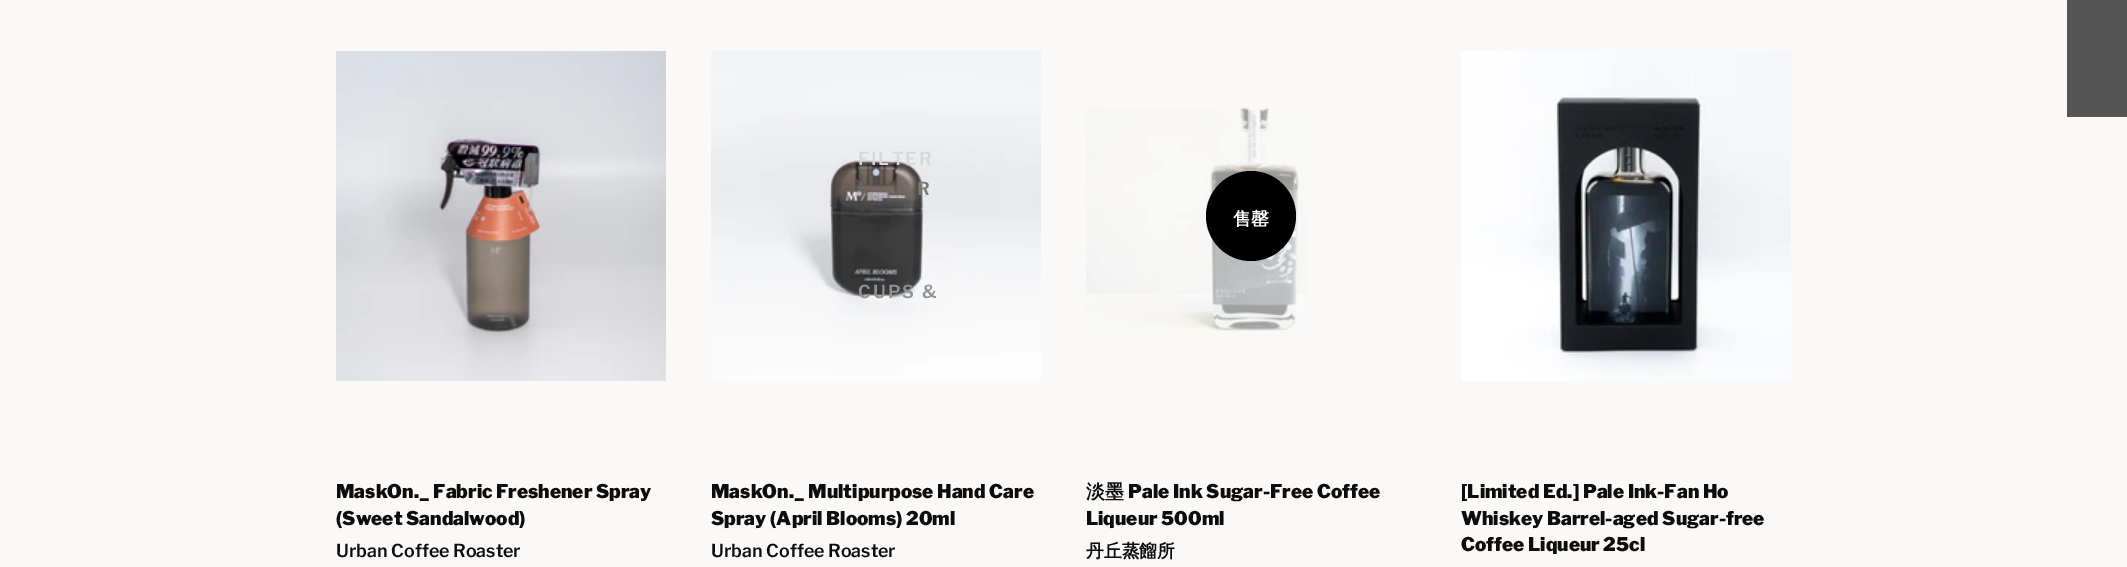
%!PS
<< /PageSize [2127 567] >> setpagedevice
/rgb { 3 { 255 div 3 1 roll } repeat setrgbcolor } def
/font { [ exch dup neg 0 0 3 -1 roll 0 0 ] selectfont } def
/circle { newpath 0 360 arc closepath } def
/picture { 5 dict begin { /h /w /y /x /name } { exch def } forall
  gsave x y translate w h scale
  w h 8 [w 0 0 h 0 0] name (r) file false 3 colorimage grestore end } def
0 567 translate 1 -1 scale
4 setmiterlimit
250 249 247 rgb
0 0 2127 567 rectfill
85 85 85 rgb
2067 0 60 117 rectfill
(img/1.rgb) 336 51 330 330 picture
(img/2.rgb) 711 51 330 330 picture
(img/3.rgb) 1086 107 221 224 picture
0 0 0 rgb
1251 216 45 circle fill
(img/4.rgb) 1461 51 330 330 picture
/LibreFranklin-SemiBold 17.8 font
216 216 218 rgb
858 165 moveto 2 0 (FILTER) ashow
126 119 116 rgb
917 195 moveto 2 0 (R) ashow
145 146 147 rgb
858 298 moveto 2 0 (CUPS &) ashow
/LibreFranklin-Black 18.9 font
13 13 13 rgb
336 498 moveto (MaskOn._ Fabric Freshener Spray) show
336 525 moveto (\(Sweet Sandalwood\)) show
/LibreFranklin-SemiBold 17.8 font
336 557 moveto (Urban Coffee Roaster) show
/LibreFranklin-Black 18.9 font
711 498 moveto (MaskOn._ Multipurpose Hand Care) show
711 525 moveto (Spray \(April Blooms\) 20ml) show
/LibreFranklin-SemiBold 17.8 font
711 557 moveto (Urban Coffee Roaster) show
/WenQuanYiZenHei-Bold 18 font
255 255 255 rgb
1233 225 moveto (售罄) show
/WenQuanYiZenHei-Bold 18.9 font
13 13 13 rgb
1086 498 moveto (淡墨) show
/LibreFranklin-Black 18.9 font
1128 498 moveto (Pale Ink Sugar-Free Coffee) show
1086 525 moveto (Liqueur 500ml) show
/WenQuanYiZenHei-Bold 17.8 font
1086 557 moveto (丹丘蒸餾所) show
/LibreFranklin-Black 18.9 font
[
  [([Limited Ed.] Pale Ink-Fan Ho) 1461 498]
  [(Whiskey Barrel-aged Sugar-free) 1461 525]
  [(Coffee Liqueur 25cl) 1461 551]
] { aload pop moveto show } forall
showpage
